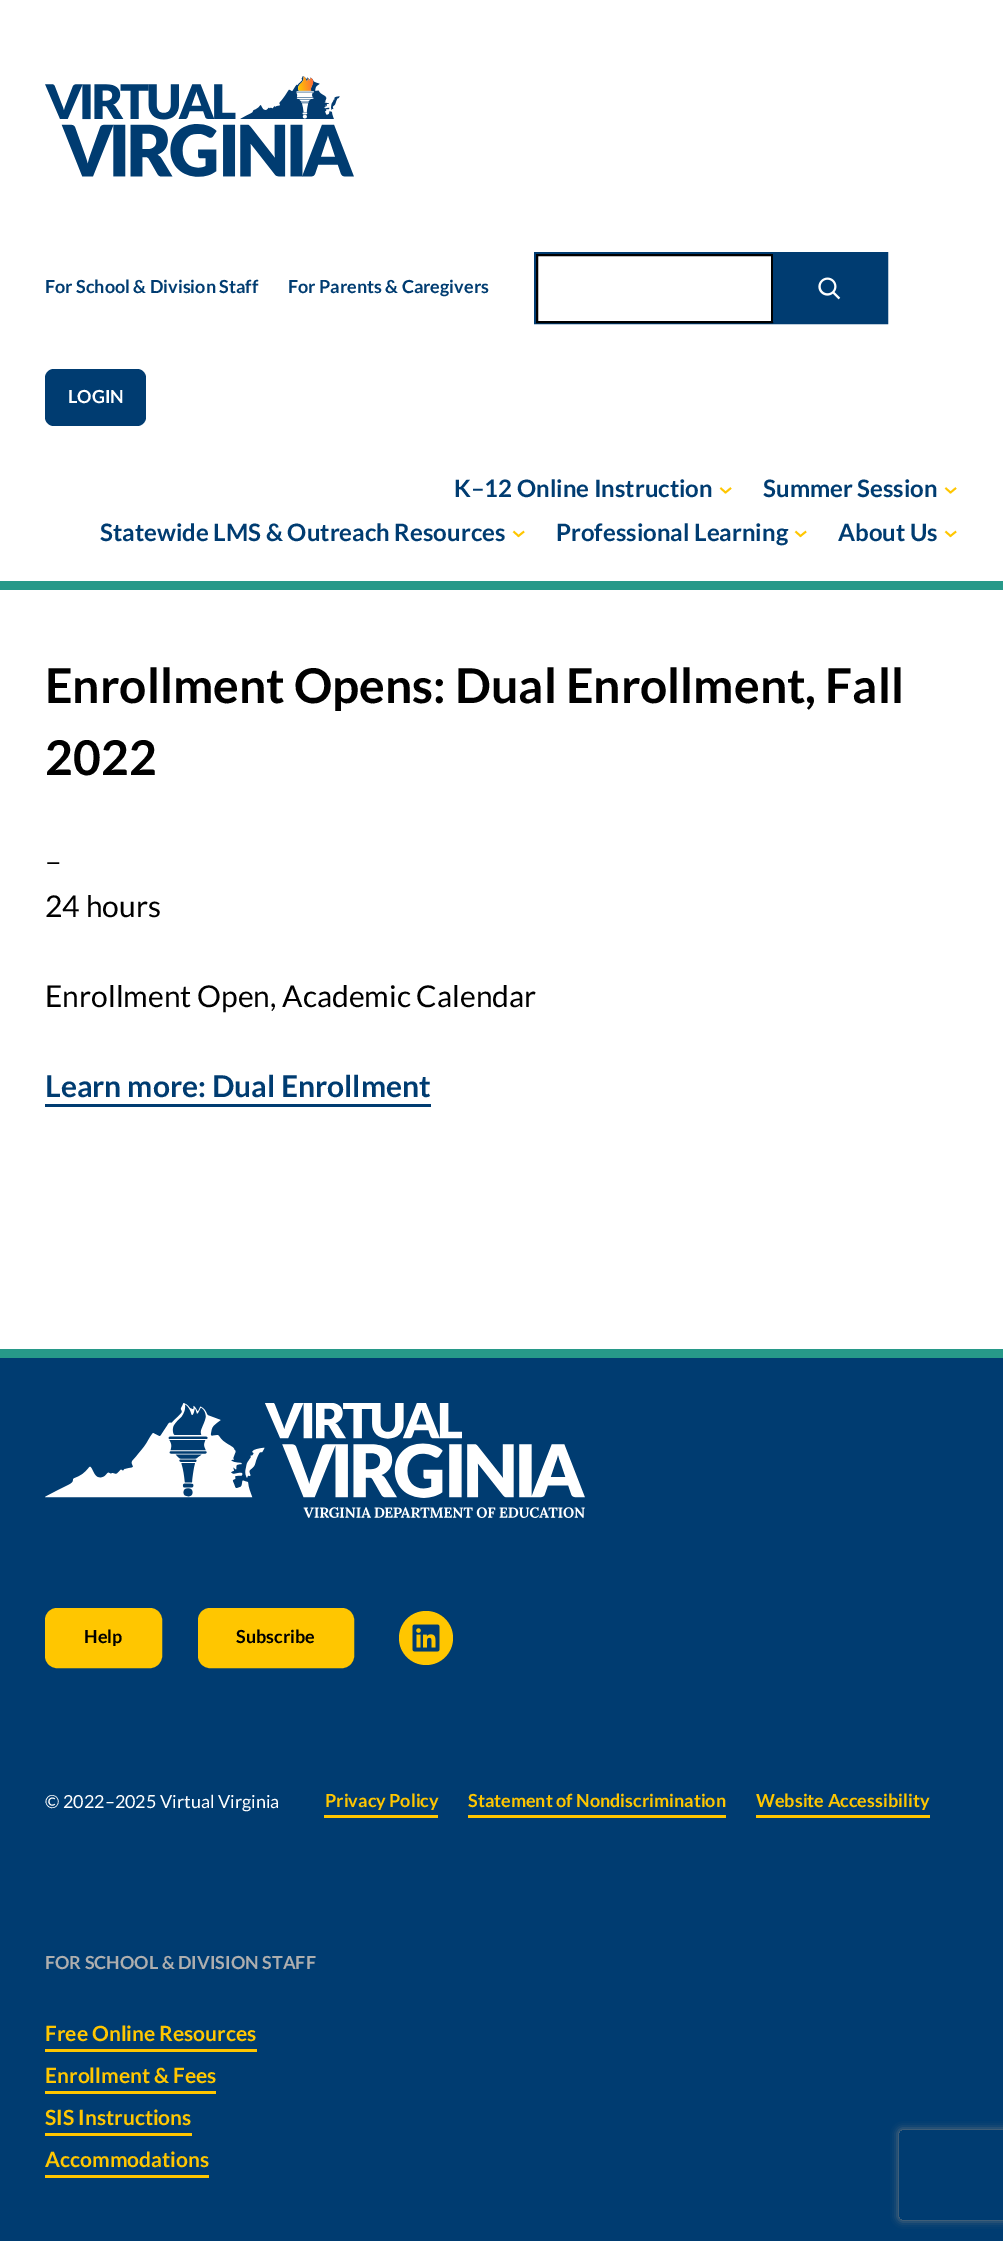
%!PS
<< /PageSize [1003 2241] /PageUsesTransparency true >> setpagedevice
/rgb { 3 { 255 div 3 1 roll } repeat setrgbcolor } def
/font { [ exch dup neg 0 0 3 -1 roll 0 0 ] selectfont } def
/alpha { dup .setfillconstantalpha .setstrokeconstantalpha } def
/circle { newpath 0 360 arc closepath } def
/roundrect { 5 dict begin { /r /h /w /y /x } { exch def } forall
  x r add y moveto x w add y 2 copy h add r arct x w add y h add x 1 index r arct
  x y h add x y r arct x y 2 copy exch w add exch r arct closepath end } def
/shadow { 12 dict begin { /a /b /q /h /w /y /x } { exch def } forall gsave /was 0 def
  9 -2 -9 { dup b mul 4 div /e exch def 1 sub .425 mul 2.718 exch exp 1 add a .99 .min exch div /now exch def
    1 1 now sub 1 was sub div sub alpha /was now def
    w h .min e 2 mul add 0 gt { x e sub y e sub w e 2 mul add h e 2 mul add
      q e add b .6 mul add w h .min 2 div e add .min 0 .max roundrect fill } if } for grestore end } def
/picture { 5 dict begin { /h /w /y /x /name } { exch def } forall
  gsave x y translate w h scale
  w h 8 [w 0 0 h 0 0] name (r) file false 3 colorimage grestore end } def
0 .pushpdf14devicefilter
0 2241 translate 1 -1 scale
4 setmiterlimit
255 255 255 rgb
0 0 1003 2241 rectfill
39 153 137 rgb
0 581 1003 9 rectfill
(img/1.rgb) 45 76 309 101 picture
0 60 113 rgb
2 setlinewidth
535 253 352 70 rectstroke
0 0 0 rgb
537 255 235 67 rectstroke
0 60 113 rgb
773 254 113 68 rectfill
(img/2.rgb) 818 277 23 23 picture
45 369 101 57 9 roundrect fill
255 198 0 rgb
1.8 setlinewidth
720.5 488 moveto 725.5 492.5 lineto 731 488 lineto stroke
945.5 488 moveto 950.5 492.5 lineto 956 488 lineto stroke
513.5 531.5 moveto 518.5 536 lineto 524 531.5 lineto stroke
795.5 531.5 moveto 800.5 536 lineto 806 531.5 lineto stroke
945.5 531.5 moveto 950.5 536 lineto 956 531.5 lineto stroke
[
  [45 1104 386 3 0 60 113]
  [0 1358 1003 883 0 60 113]
  [0 1349 1003 9 39 153 137]
] { aload pop rgb rectfill } forall
(img/3.rgb) 45 1403 540 115 picture
255 198 0 rgb
46 1609 115 58 11 roundrect gsave fill grestore
2 setlinewidth
stroke
199 1609 154 58 11 roundrect gsave fill grestore
stroke
426 1638 27 circle fill
(img/4.rgb) 412 1624 28 28 picture
[
  [324 1815 114 3 255 198 0]
  [468 1815 258 3 255 198 0]
  [756 1815 174 3 255 198 0]
  [45 2049 212 3 255 198 0]
  [45 2091 171 3 255 198 0]
  [45 2133 147 3 255 198 0]
  [45 2175 164 3 255 198 0]
] { aload pop rgb rectfill } forall
gsave
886 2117 moveto 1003 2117 lineto 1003 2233 lineto 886 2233 lineto closepath 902 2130 moveto 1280 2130 lineto 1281.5 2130 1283 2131.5 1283 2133 curveto 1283 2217 lineto 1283 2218.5 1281.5 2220 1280 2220 curveto 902 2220 lineto 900.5 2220 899 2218.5 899 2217 curveto 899 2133 lineto 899 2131.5 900.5 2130 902 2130 curveto closepath eoclip newpath
128 128 128 rgb
899 2130 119 90 3 4 1 shadow
grestore
/Lato-Bold 18 font
0 60 113 rgb
45 293 moveto (For School & Division Staff) show
288 293 moveto (For Parents & Caregivers) show
255 255 255 rgb
68 403 moveto (LOGIN) show
/Lato-Bold 24 font
0 60 113 rgb
[
  [(K–12 Online Instruction) 454 497]
  [(Summer Session) 763 497]
  [(Statewide LMS & Outreach Resources) 100 541]
  [(Professional Learning) 556 541]
  [(About Us) 838 541]
] { aload pop moveto show } forall
/Lato-Bold 48 font
0 0 0 rgb
45 703 moveto (Enrollment Opens: Dual Enrollment, Fall) show
45 775 moveto (2022) show
/Lato-Regular 30 font
[
  [(–) 45 872]
  [(24 hours) 45 917]
  [(Enrollment Open, Academic Calendar) 45 1007]
] { aload pop moveto show } forall
/Lato-Bold 30 font
0 60 113 rgb
45 1097 moveto (Learn more: Dual Enrollment) show
/Lato-Bold 18 font
0 0 0 rgb
84 1643 moveto (Help) show
236 1643 moveto (Subscribe) show
/Lato-Regular 18 font
255 255 255 rgb
45 1808 moveto (© 2022–2025 Virtual Virginia) show
/Lato-Bold 18 font
255 198 0 rgb
[
  [(Privacy Policy) 325 1807]
  [(Statement of Nondiscrimination) 468 1807]
  [(Website Accessibility) 756 1807]
] { aload pop moveto show } forall
174 174 174 rgb
45 1969 moveto (FOR SCHOOL & DIVISION STAFF) show
/Lato-Bold 21 font
255 198 0 rgb
[
  [(Free Online Resources) 45 2041]
  [(Enrollment & Fees) 45 2083]
  [(SIS Instructions) 45 2125]
  [(Accommodations) 45 2167]
] { aload pop moveto show } forall
.poppdf14devicefilter showpage
